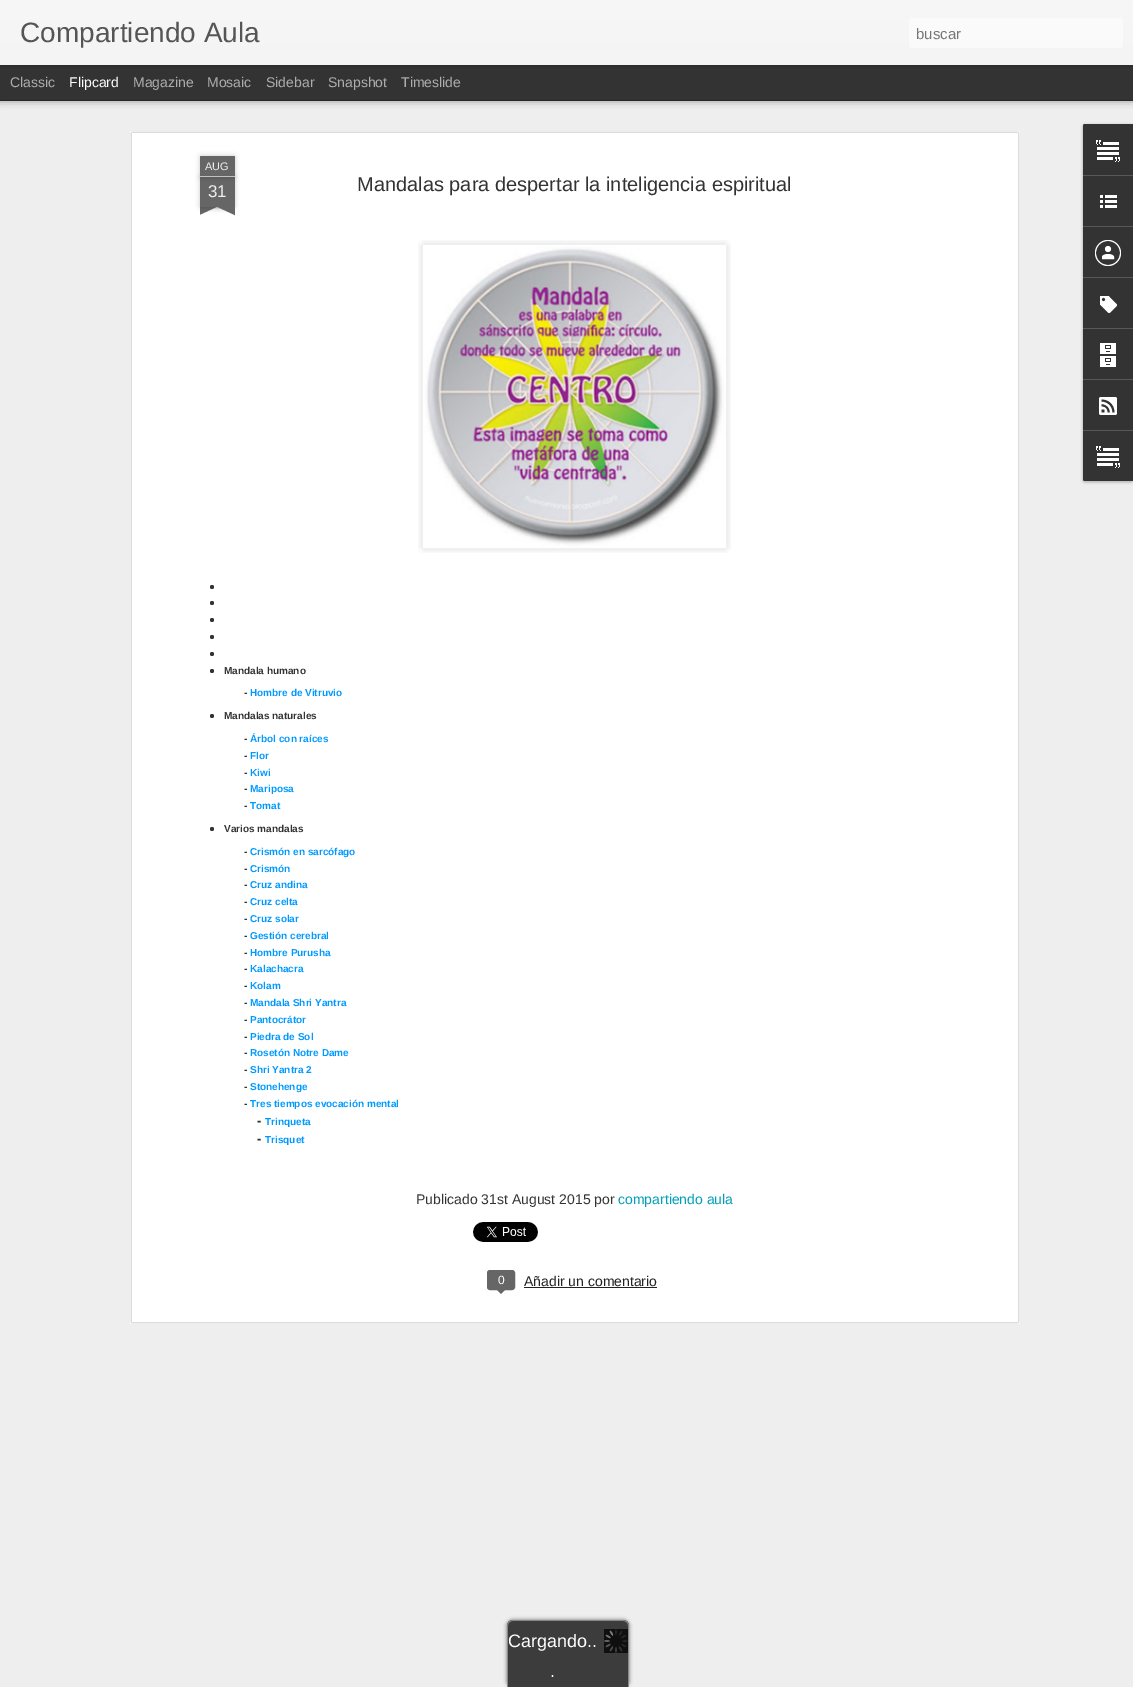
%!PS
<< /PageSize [1133 1687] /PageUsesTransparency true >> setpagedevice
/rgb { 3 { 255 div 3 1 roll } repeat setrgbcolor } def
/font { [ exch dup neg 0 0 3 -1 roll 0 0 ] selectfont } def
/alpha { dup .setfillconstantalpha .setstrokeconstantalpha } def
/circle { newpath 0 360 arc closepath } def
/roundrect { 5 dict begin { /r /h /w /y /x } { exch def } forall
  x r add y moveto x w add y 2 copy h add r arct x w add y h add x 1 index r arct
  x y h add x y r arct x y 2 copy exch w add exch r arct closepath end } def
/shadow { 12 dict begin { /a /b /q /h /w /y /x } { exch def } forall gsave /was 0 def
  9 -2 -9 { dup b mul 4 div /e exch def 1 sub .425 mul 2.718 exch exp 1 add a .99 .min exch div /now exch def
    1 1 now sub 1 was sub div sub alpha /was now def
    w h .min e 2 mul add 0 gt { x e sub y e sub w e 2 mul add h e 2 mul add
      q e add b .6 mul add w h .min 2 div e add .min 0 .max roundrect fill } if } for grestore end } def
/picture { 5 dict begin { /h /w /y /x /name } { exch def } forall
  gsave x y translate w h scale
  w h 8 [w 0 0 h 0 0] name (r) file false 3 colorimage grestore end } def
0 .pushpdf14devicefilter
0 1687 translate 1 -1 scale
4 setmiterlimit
51 51 51 rgb
0 0 1133 1687 rectfill
238 238 238 rgb
0 101 1133 1586 rectfill
0 0 0 rgb
0 65 1133 35 0 4 0.5 shadow
51 51 51 rgb
0 65 1133 35 rectfill
0 0 0 rgb
0 0 1133 65 0 2.5 0.3 shadow
gsave 0 0 moveto 1133 0 lineto 1133 65 lineto 0 65 lineto closepath clip newpath
<< /ShadingType 2 /ColorSpace /DeviceRGB /Coords [0 0 0 65] /Extend [true true] /Function << /FunctionType 2 /Domain [0 1] /C0 [0.969 0.969 0.969] /C1 [0.957 0.957 0.957] /N 1 >> >> shfill grestore
250 250 250 rgb
909 18 214 30 3 roundrect fill
255 255 255 rgb
130 131 890 1193 rectfill
(img/1.rgb) 130 131 890 1193 picture
0 0 0 rgb
200 177 35 30 0 2.5 0.2 shadow
102 102 102 rgb
200 177 35 30 rectfill
0 0 0 rgb
200 156 35 21 1 2.5 0.2 shadow
102 102 102 rgb
201 156 moveto 234 156 lineto 234.5 156 235 156.5 235 157 curveto 235 177 lineto 200 177 lineto 200 157 lineto 200 156.5 200.5 156 201 156 curveto closepath fill
194 194 194 rgb
200 176 35 1 rectfill
gsave
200 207 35 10 rectclip
0 0 0 rgb
191 197 50 10 0 2.5 0.2 shadow
grestore
gsave
200 207 35 10 rectclip
102 102 102 rgb
191 208 moveto 236 187 lineto 240 196 lineto 195 217 lineto closepath fill
grestore
gsave
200 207 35 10 rectclip
0 0 0 rgb
194 197 50 10 0 2.5 0.2 shadow
grestore
gsave
200 207 35 10 rectclip
102 102 102 rgb
198 187 moveto 243 208 lineto 239 217 lineto 194 196 lineto closepath fill
grestore
(img/2.rgb) 418 240 313 313 picture
(img/3.rgb) 422 244 305 305 picture
51 51 51 rgb
212 587 2 circle fill
212 603 2 circle fill
212 620 2 circle fill
212 637 2 circle fill
212 654 2 circle fill
212 671 2 circle fill
212 716 2 circle fill
212 829 2 circle fill
(img/4.rgb) 473 1222 65 20 picture
102 102 102 rgb
487.5 1270.5 27 19 2.5 roundrect gsave fill grestore
stroke
496 1289 moveto 506 1289 lineto 501 1294 lineto closepath fill
34 34 34 rgb
524 1287 133 1 rectfill
0 0 0 rgb
1083 125 50 357 2 1.5 0.3 shadow
51 51 51 rgb
1085 124 moveto 1133 124 lineto 1133 481 lineto 1085 481 lineto 1084 481 1083 480 1083 479 curveto 1083 126 lineto 1083 125 1084 124 1085 124 curveto closepath fill
1085 124 moveto 1133 124 lineto 1133 175 lineto 1083 175 lineto 1083 126 lineto 1083 125 1084 124 1085 124 curveto closepath fill
(img/5.rgb) 1096 140 24 22 picture
88 88 88 rgb
1083 175 50 1 rectfill
(img/6.rgb) 1100 195 17 13 picture
1083 226 50 1 rectfill
(img/7.rgb) 1095 240 26 26 picture
1083 277 50 1 rectfill
(img/8.rgb) 1100 296 17 17 picture
1083 328 50 1 rectfill
(img/9.rgb) 1100 343 16 24 picture
1083 379 50 1 rectfill
(img/10.rgb) 1099 397 18 18 picture
51 51 51 rgb
1083 430 moveto 1133 430 lineto 1133 481 lineto 1085 481 lineto 1084 481 1083 480 1083 479 curveto closepath fill
88 88 88 rgb
1083 430 50 1 rectfill
(img/5.rgb) 1096 446 24 22 picture
98 98 98 rgb
507 1620 122 67 6 2 1 shadow
60 60 60 rgb
513 1620 moveto 623 1620 lineto 626.5 1620 629 1622.5 629 1626 curveto 629 1687 lineto 507 1687 lineto 507 1626 lineto 507 1622.5 509.5 1620 513 1620 curveto closepath fill
136 136 136 rgb
513 1620 moveto 623 1620 lineto 626 1620 629 1623 629 1626 curveto 629 1687 lineto 507 1687 lineto 507 1626 lineto 507 1623 510 1620 513 1620 curveto closepath 513 1621 moveto 623 1621 lineto 626 1621 628 1623 628 1626 curveto 628 1687 lineto 508 1687 lineto 508 1626 lineto 508 1623 510 1621 513 1621 curveto closepath eofill
(img/11.rgb) 604 1629 24 24 picture
/LiberationSans-Regular 28 font
85 85 85 rgb
20 42 moveto (Compartiendo Aula) show
/LiberationSans-Regular 15 font
117 117 117 rgb
916 39 moveto (buscar) show
/LiberationSans-Regular 14 font
173 173 173 rgb
10 87 moveto (Classic) show
255 255 255 rgb
69 87 moveto (Flipcard) show
173 173 173 rgb
[
  [(Magazine) 133 87]
  [(Mosaic) 207 87]
  [(Sidebar) 266 87]
  [(Snapshot) 328 87]
  [(Timeslide) 401 87]
] { aload pop moveto show } forall
/LiberationSans-Regular 11 font
238 238 238 rgb
205 170 moveto (AUG) show
/LiberationSans-Regular 17 font
208 197 moveto (31) show
/LiberationSans-Regular 20 font
51 51 51 rgb
357 191 moveto (Mandalas para despertar la inteligencia espiritual) show
/LiberationSans-Bold 10 font
224 674 moveto (Mandala humano) show
244 696 moveto (-) show
0 153 255 rgb
250 696 moveto (Hombre de Vitruvio) show
51 51 51 rgb
224 719 moveto (Mandalas naturales) show
244 742 moveto (-) show
0 153 255 rgb
250 742 moveto (Árbol con raíces) show
51 51 51 rgb
244 759 moveto (-) show
0 153 255 rgb
250 759 moveto (Flor) show
51 51 51 rgb
244 776 moveto (-) show
0 153 255 rgb
250 776 moveto (Kiwi) show
51 51 51 rgb
244 792 moveto (-) show
0 153 255 rgb
250 792 moveto (Mariposa) show
51 51 51 rgb
244 809 moveto (-) show
0 153 255 rgb
250 809 moveto (Tomat) show
51 51 51 rgb
224 832 moveto (Varios mandalas) show
244 855 moveto (-) show
0 153 255 rgb
250 855 moveto (Crismón en sarcófago) show
51 51 51 rgb
244 872 moveto (-) show
0 153 255 rgb
250 872 moveto (Crismón) show
51 51 51 rgb
244 888 moveto (-) show
0 153 255 rgb
250 888 moveto (Cruz andina) show
51 51 51 rgb
244 905 moveto (-) show
0 153 255 rgb
250 905 moveto (Cruz celta) show
51 51 51 rgb
244 922 moveto (-) show
0 153 255 rgb
250 922 moveto (Cruz solar) show
51 51 51 rgb
244 939 moveto (-) show
0 153 255 rgb
250 939 moveto (Gestión cerebral) show
51 51 51 rgb
244 956 moveto (-) show
0 153 255 rgb
250 956 moveto (Hombre Purusha) show
51 51 51 rgb
244 972 moveto (-) show
0 153 255 rgb
250 972 moveto (Kalachacra) show
51 51 51 rgb
244 989 moveto (-) show
0 153 255 rgb
250 989 moveto (Kolam) show
51 51 51 rgb
244 1006 moveto (-) show
0 153 255 rgb
250 1006 moveto (Mandala Shri Yantra) show
51 51 51 rgb
244 1023 moveto (-) show
0 153 255 rgb
250 1023 moveto (Pantocrátor) show
51 51 51 rgb
244 1040 moveto (-) show
0 153 255 rgb
250 1040 moveto (Piedra de Sol) show
51 51 51 rgb
244 1056 moveto (-) show
0 153 255 rgb
250 1056 moveto (Rosetón Notre Dame) show
51 51 51 rgb
244 1073 moveto (-) show
0 153 255 rgb
250 1073 moveto (Shri Yantra 2) show
51 51 51 rgb
244 1090 moveto (-) show
0 153 255 rgb
250 1090 moveto (Stonehenge) show
51 51 51 rgb
244 1107 moveto (-) show
0 153 255 rgb
250 1107 moveto (Tres tiempos evocación mental) show
/LiberationSans-Bold 13 font
51 51 51 rgb
257 1125 moveto (-) show
/LiberationSans-Bold 10 font
0 153 255 rgb
265 1125 moveto (Trinqueta) show
/LiberationSans-Bold 13 font
51 51 51 rgb
257 1143 moveto (-) show
/LiberationSans-Bold 10 font
0 153 255 rgb
265 1143 moveto (Trisquet) show
/LiberationSans-Regular 14 font
51 51 51 rgb
416 1204 moveto (Publicado 31st August 2015 por) show
0 158 184 rgb
618 1204 moveto (compartiendo aula) show
/LiberationSans-Regular 12 font
255 255 255 rgb
498 1284 moveto (0) show
/LiberationSans-Regular 14 font
34 34 34 rgb
524 1286 moveto (Añadir un comentario) show
/LiberationSans-Regular 18 font
255 255 255 rgb
508 1647 moveto (Cargando..) show
550 1677 moveto (.) show
.poppdf14devicefilter showpage
